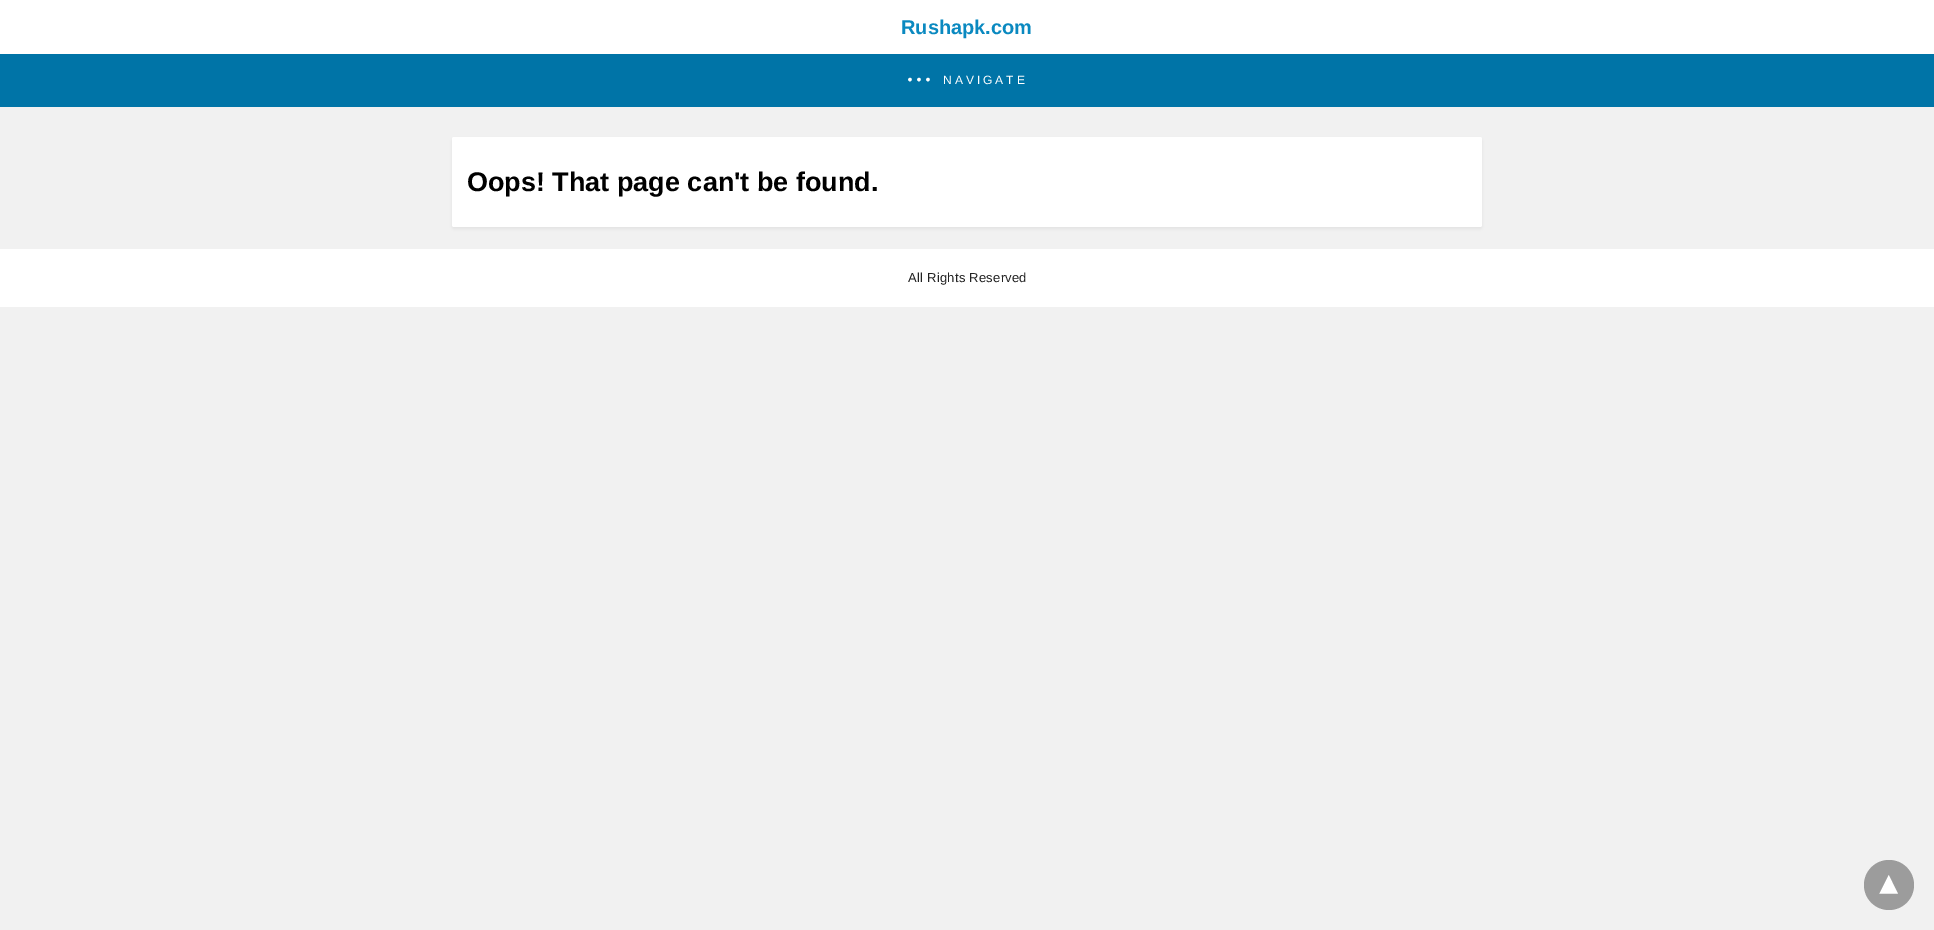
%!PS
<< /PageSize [1934 930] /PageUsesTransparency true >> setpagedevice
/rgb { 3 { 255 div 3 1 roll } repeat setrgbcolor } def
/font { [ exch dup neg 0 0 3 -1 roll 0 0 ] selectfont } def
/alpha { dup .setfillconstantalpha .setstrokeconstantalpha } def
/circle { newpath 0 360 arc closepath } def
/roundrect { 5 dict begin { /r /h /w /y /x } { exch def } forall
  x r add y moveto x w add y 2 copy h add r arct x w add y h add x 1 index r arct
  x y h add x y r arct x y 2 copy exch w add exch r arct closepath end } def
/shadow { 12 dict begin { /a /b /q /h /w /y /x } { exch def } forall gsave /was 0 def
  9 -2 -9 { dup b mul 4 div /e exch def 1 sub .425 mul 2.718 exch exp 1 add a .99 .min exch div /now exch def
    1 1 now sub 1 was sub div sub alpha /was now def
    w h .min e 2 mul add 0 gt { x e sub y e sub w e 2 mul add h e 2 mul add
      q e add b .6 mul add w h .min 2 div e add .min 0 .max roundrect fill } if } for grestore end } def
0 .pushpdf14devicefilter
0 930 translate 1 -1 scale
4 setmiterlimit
241 241 241 rgb
0 0 1934 930 rectfill
255 255 255 rgb
0 0 1934 54 rectfill
0 116 167 rgb
0 54 1934 53 rectfill
0 0 0 rgb
452 139 1030 90 2 1.5 0.05 shadow
255 255 255 rgb
452 137 1030 90 2 roundrect fill
0 249 1934 58 rectfill
156 156 156 rgb
1889 885 25 circle fill
/LiberationSans-Bold 20 font
10 137 192 rgb
901 34 moveto (Rushapk.com) show
/LiberationSerif-Regular 32 font
255 255 255 rgb
906 81 moveto 1 0 (...) ashow
/LiberationSans-Regular 12 font
943 84 moveto 3 0 (NAVIGATE) ashow
/LiberationSans-Bold 27 font
0 0 0 rgb
467 191 moveto (Oops! That page can't be found.) show
/LiberationSans-Regular 13 font
34 34 34 rgb
908 282 moveto 0.25 0 (All Rights Reserved) ashow
/DejaVuSans-Bold 35 font
255 255 255 rgb
gsave 1898 875 translate 180 rotate 0 0 moveto (▾) show grestore
.poppdf14devicefilter showpage
